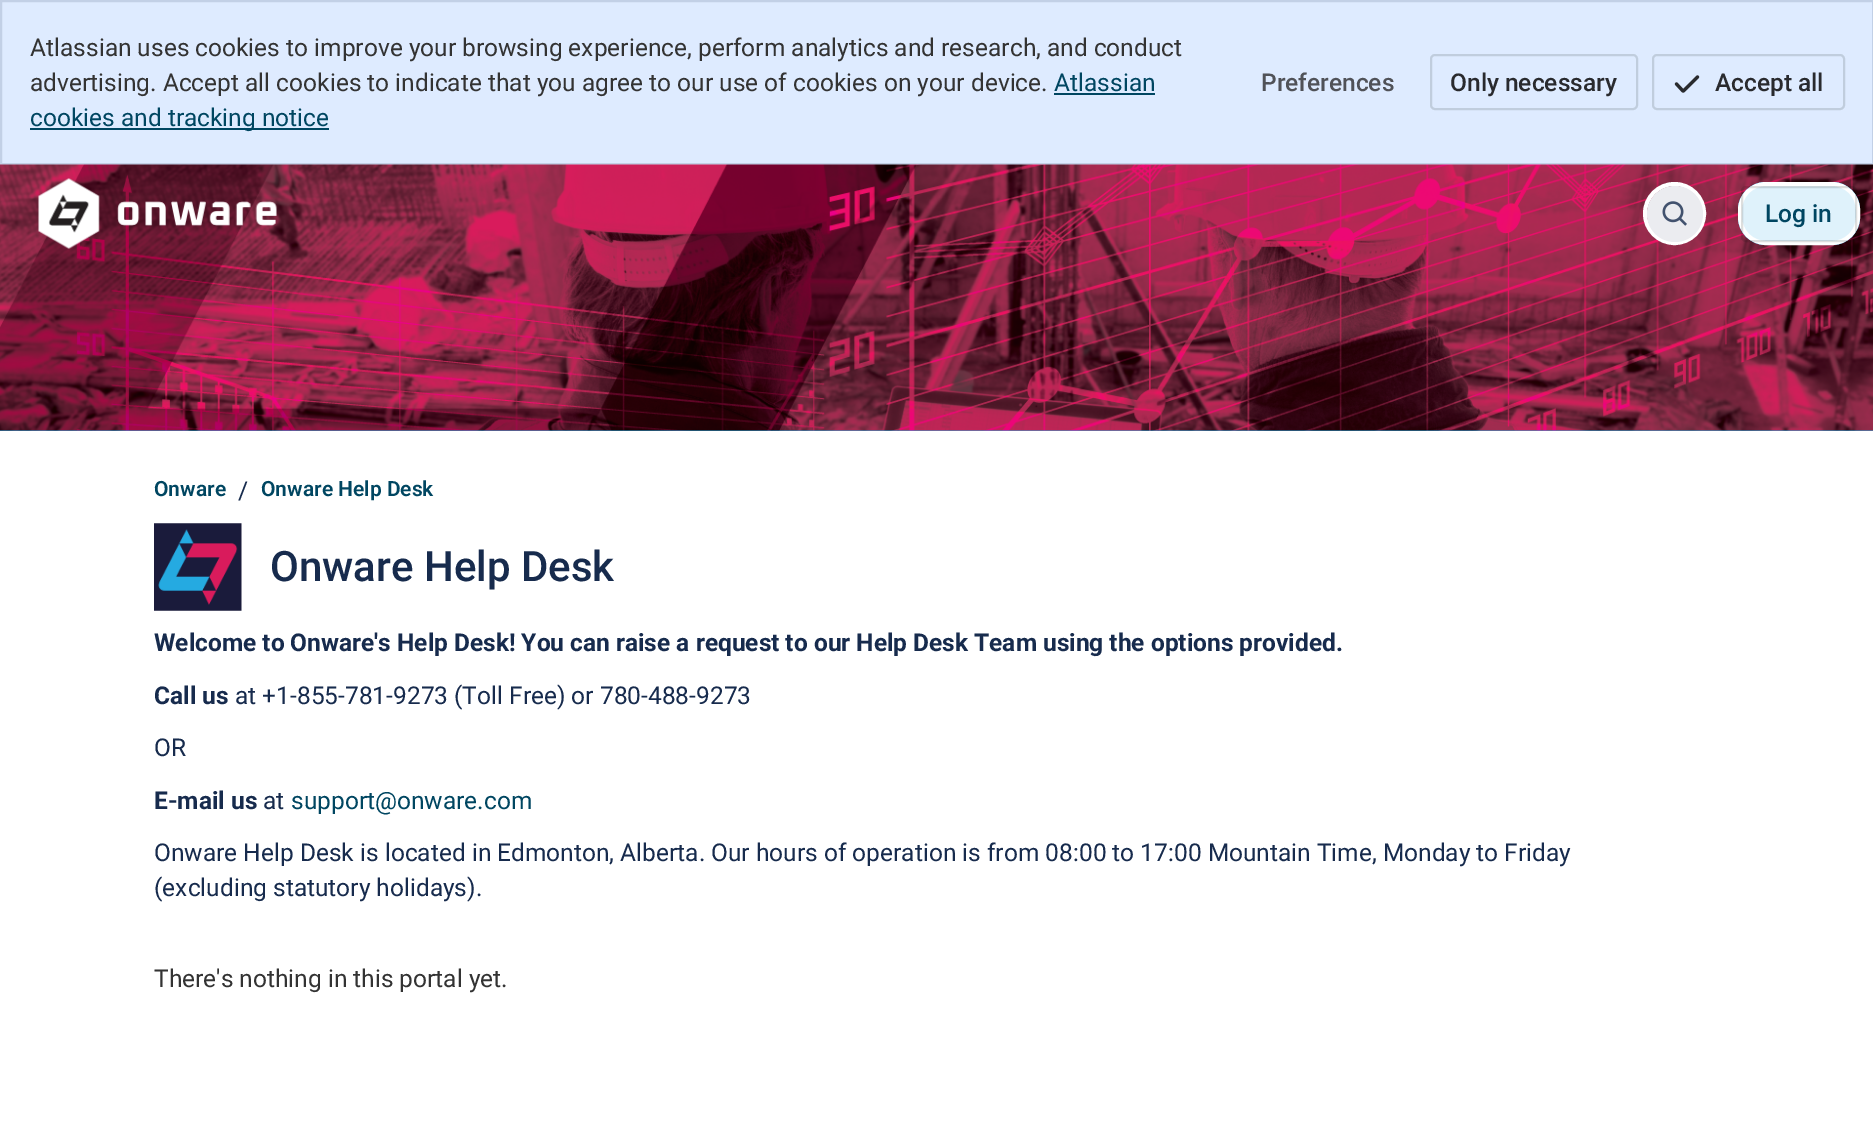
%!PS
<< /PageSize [1873 1148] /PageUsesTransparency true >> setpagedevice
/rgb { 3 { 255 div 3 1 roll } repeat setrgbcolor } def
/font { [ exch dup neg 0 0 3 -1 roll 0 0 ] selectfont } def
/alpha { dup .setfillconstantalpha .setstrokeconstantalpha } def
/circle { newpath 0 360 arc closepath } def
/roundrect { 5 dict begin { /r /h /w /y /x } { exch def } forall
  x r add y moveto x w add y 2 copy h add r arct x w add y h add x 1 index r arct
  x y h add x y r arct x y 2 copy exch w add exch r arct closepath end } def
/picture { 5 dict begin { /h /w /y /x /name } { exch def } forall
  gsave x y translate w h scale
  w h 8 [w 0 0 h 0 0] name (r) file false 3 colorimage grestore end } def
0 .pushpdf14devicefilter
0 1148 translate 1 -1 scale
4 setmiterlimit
255 255 255 rgb
0 0 1873 1148 rectfill
222 235 255 rgb
1 1 moveto 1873 1 lineto 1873 164 lineto 1 164 lineto closepath gsave fill grestore
194 208 230 rgb
2 setlinewidth
stroke
0 70 97 rgb
1054 93 101 2 rectfill
30 128 299 2 rectfill
192 205 221 rgb
1431 55 206 54 4 roundrect stroke
(img/1.rgb) 1674 75 26 18 picture
1653 55 191 54 4 roundrect stroke
39 170 225 rgb
0 430 1873 1 rectfill
(img/2.rgb) 0 164 1873 267 picture
(img/3.rgb) 38 178 239 71 picture
255 255 255 rgb
4 setlinewidth
1674.5 213.5 29.5 circle stroke
235 236 240 rgb
1675 214 28 circle fill
(img/4.rgb) 1662 201 25 25 picture
39 170 225 rgb
1738 182 122 63 28 roundrect fill
0.85 alpha
255 255 255 rgb
1740 184 118 59 26 roundrect fill
1 alpha
1740 184 118 59 26 roundrect stroke
0.14 alpha
11 18 14 rgb
2 setlinewidth
1742 187 114 54 4 roundrect stroke
1 alpha
(img/5.rgb) 154 523 88 88 picture
/Roboto-Regular 24.5 font
51 51 51 rgb
30 56 moveto (Atlassian uses cookies to improve your browsing experience, perform analytics and research, and conduct) show
30 91 moveto (advertising. Accept all cookies to indicate that you agree to our use of cookies on your device.) show
0 70 97 rgb
1054 91 moveto (Atlassian) show
30 126 moveto (cookies and tracking notice) show
/Roboto-Medium 24.5 font
80 82 88 rgb
1261 91 moveto (Preferences) show
41 42 46 rgb
1450 91 moveto (Only necessary) show
1715 91 moveto (Accept all) show
0 70 97 rgb
1765 222 moveto (Log in) show
/Roboto-SemiBold 21 font
154 496 moveto (Onware) show
/Roboto-Regular 24.5 font
23 43 77 rgb
238 499 moveto (/) show
/Roboto-SemiBold 21 font
0 70 97 rgb
261 496 moveto (Onware Help Desk) show
/Roboto-Medium 42 font
23 43 77 rgb
270 581 moveto (Onware Help Desk) show
/Roboto-Bold 24.5 font
154 651 moveto (Welcome to Onware's Help Desk! You can raise a request to our Help Desk Team using the options provided.) show
154 704 moveto (Call us) show
/Roboto-Regular 24.5 font
235 704 moveto (at +1-855-781-9273 \(Toll Free\) or 780-488-9273) show
154 756 moveto (OR) show
/Roboto-Bold 24.5 font
154 809 moveto (E-mail us) show
/Roboto-Regular 24.5 font
263 809 moveto (at) show
0 70 97 rgb
291 809 moveto (support@onware.com) show
23 43 77 rgb
154 861 moveto (Onware Help Desk is located in Edmonton, Alberta. Our hours of operation is from 08:00 to 17:00 Mountain Time, Monday to Friday) show
154 896 moveto (\(excluding statutory holidays\).) show
51 51 51 rgb
154 987 moveto (There's nothing in this portal yet.) show
.poppdf14devicefilter showpage
